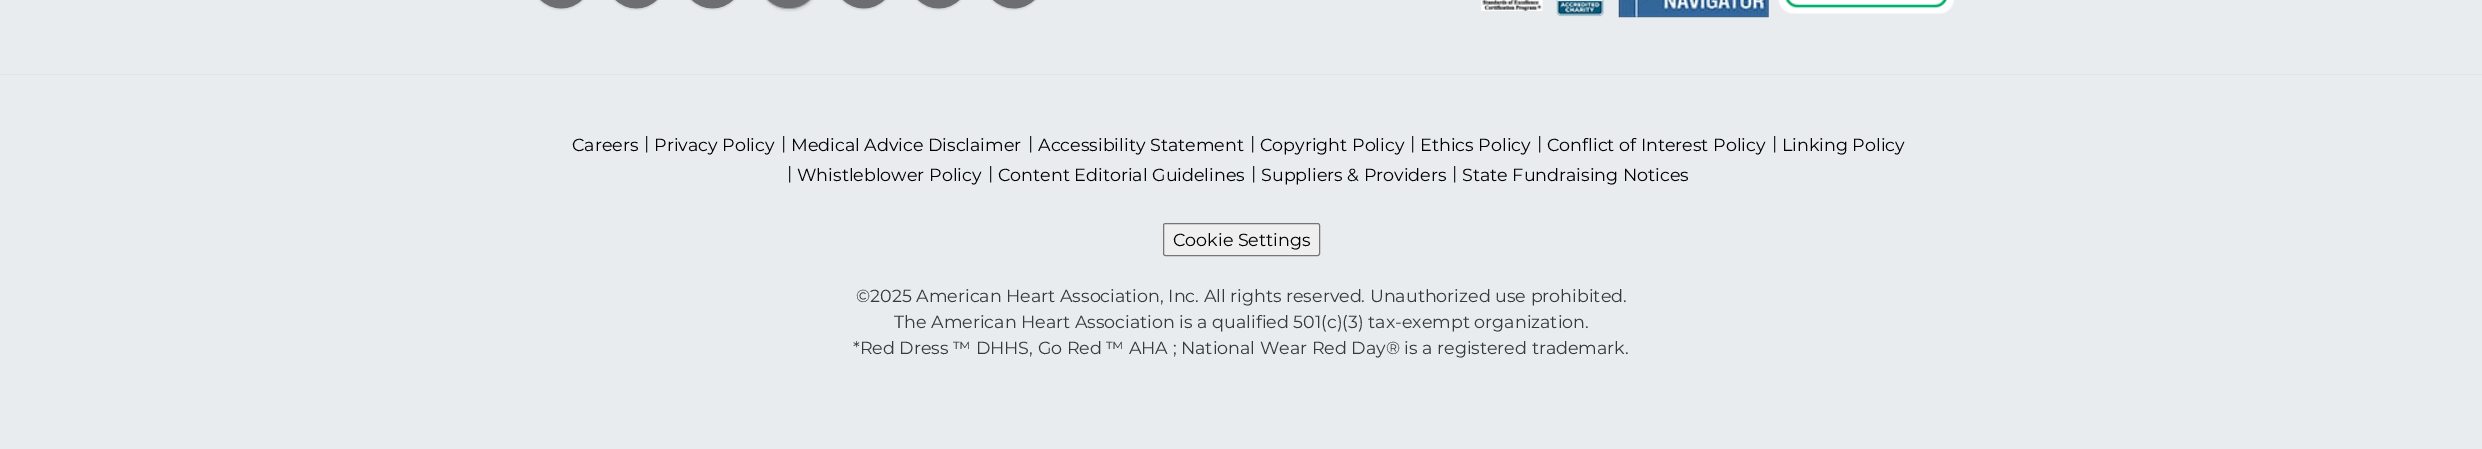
%!PS
<< /PageSize [2482 449] >> setpagedevice
/rgb { 3 { 255 div 3 1 roll } repeat setrgbcolor } def
/font { [ exch dup neg 0 0 3 -1 roll 0 0 ] selectfont } def
/roundrect { 5 dict begin { /r /h /w /y /x } { exch def } forall
  x r add y moveto x w add y 2 copy h add r arct x w add y h add x 1 index r arct
  x y h add x y r arct x y 2 copy exch w add exch r arct closepath end } def
/picture { 5 dict begin { /h /w /y /x /name } { exch def } forall
  gsave x y translate w h scale
  w h 8 [w 0 0 h 0 0] name (r) file false 3 colorimage grestore end } def
0 449 translate 1 -1 scale
4 setmiterlimit
233 236 239 rgb
0 0 2482 449 rectfill
227 227 227 rgb
0 74 2482 1 rectfill
(img/1.rgb) 538 0 46 11 picture
(img/1.rgb) 613 0 46 11 picture
(img/2.rgb) 689 0 47 11 picture
(img/3.rgb) 765 0 49 12 picture
(img/4.rgb) 841 0 46 11 picture
(img/4.rgb) 916 0 46 11 picture
(img/5.rgb) 991 0 46 11 picture
(img/6.rgb) 1481 0 62 11 picture
(img/7.rgb) 1556 0 48 17 picture
(img/8.rgb) 1618 0 151 18 picture
(img/9.rgb) 1778 0 176 14 picture
239 239 239 rgb
1163.5 223.5 156 32 2 roundrect gsave fill grestore
118 118 118 rgb
stroke
/Montserrat-Regular 17.5 font
0 0 0 rgb
572 151 moveto (Careers) show
34 35 40 rgb
644 149 moveto (|) show
0 0 0 rgb
654 151 moveto (Privacy Policy) show
34 35 40 rgb
781 149 moveto (|) show
0 0 0 rgb
791 151 moveto (Medical Advice Disclaimer) show
34 35 40 rgb
1028 149 moveto (|) show
0 0 0 rgb
1038 151 moveto (Accessibility Statement) show
34 35 40 rgb
1250 149 moveto (|) show
0 0 0 rgb
1260 151 moveto (Copyright Policy) show
34 35 40 rgb
1410 149 moveto (|) show
0 0 0 rgb
1420 151 moveto (Ethics Policy) show
34 35 40 rgb
1537 149 moveto (|) show
0 0 0 rgb
1547 151 moveto (Conflict of Interest Policy) show
34 35 40 rgb
1772 149 moveto (|) show
0 0 0 rgb
1782 151 moveto (Linking Policy) show
34 35 40 rgb
787 179 moveto (|) show
0 0 0 rgb
797 181 moveto (Whistleblower Policy) show
34 35 40 rgb
988 179 moveto (|) show
0 0 0 rgb
998 181 moveto (Content Editorial Guidelines) show
34 35 40 rgb
1251 179 moveto (|) show
0 0 0 rgb
1261 181 moveto (Suppliers & Providers) show
34 35 40 rgb
1452 179 moveto (|) show
0 0 0 rgb
1462 181 moveto (State Fundraising Notices) show
1173 246 moveto (Cookie Settings) show
52 58 64 rgb
[
  [(©2025 American Heart Association, Inc. All rights reserved. Unauthorized use prohibited.) 856 302]
  [(The American Heart Association is a qualified 501\(c\)\(3\) tax-exempt organization.) 894 328]
  [(*Red Dress ™ DHHS, Go Red ™ AHA ; National Wear Red Day® is a registered trademark.) 853 354]
] { aload pop moveto show } forall
showpage
